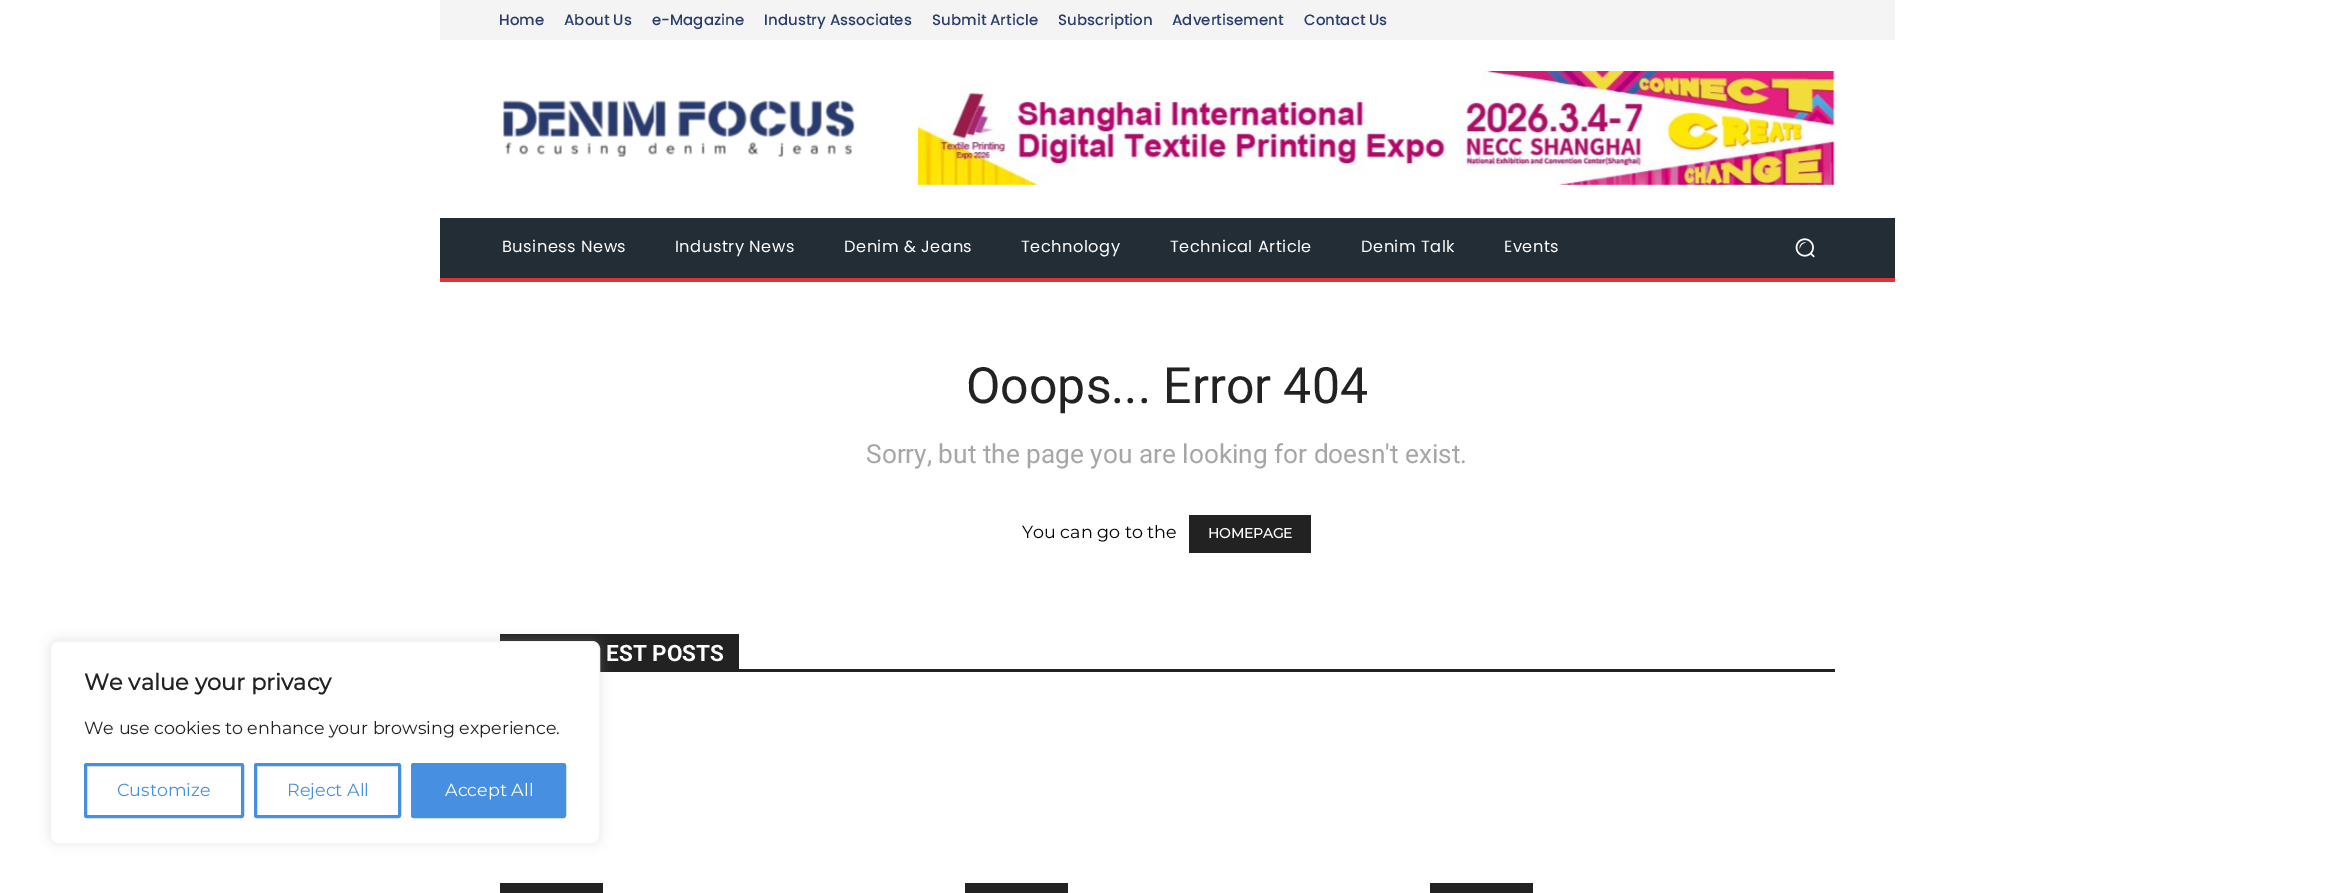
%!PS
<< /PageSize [2333 893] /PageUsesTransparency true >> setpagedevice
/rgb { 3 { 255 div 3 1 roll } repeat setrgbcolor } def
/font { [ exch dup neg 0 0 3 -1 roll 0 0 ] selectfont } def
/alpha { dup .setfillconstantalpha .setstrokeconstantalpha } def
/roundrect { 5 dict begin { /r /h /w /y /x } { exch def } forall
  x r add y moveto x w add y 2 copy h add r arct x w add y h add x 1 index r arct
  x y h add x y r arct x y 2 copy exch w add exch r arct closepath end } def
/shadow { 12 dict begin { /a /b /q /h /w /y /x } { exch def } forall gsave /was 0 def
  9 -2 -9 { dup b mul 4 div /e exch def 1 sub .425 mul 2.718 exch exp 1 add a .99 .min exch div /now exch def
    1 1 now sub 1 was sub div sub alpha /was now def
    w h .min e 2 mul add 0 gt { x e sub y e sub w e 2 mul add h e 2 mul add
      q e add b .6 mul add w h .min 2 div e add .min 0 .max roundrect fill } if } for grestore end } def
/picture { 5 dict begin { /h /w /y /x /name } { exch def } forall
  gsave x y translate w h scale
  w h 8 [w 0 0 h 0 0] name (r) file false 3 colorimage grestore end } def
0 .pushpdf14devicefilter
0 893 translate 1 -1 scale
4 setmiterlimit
255 255 255 rgb
0 0 2333 893 rectfill
244 244 244 rgb
440 0 1455 40 rectfill
(img/1.rgb) 503 100 352 57 picture
(img/2.rgb) 918 71 917 114 picture
35 45 53 rgb
440 218 1455 60 rectfill
(img/3.rgb) 1795 238 20 20 picture
[
  [440 278 1455 4 221 51 51]
  [1189 515 122 38 34 34 34]
  [600 669 1235 3 34 34 34]
  [500 634 239 35 34 34 34]
  [500 883 103 10 34 34 34]
  [965 883 103 10 34 34 34]
  [1430 883 103 10 34 34 34]
] { aload pop rgb rectfill } forall
172 171 171 rgb
50 640 550 203 8 6 0.3 shadow
255 255 255 rgb
50.5 641.5 549 202 7.5 roundrect gsave fill grestore
244 244 244 rgb
stroke
71 143 224 rgb
3 setlinewidth
85.5 764.5 157 52 1 roundrect stroke
255.5 764.5 144 52 1 roundrect stroke
412.5 764.5 152 52 1 roundrect gsave fill grestore
stroke
/Poppins-Medium 15 font
41 60 108 rgb
[
  [(Home) 499 25]
  [(About Us) 564 25]
  [(e-Magazine) 652 25]
  [(Industry Associates) 764 25]
  [(Submit Article) 932 25]
  [(Subscription) 1058 25]
  [(Advertisement) 1172 25]
  [(Contact Us) 1304 25]
] { aload pop moveto show } forall
/Poppins-Regular 16.25 font
255 255 255 rgb
502 252 moveto 0.5 0 (Business News) ashow
675 252 moveto 0.5 0 (Industry News) ashow
844 252 moveto 0.5 0 (Denim & Jeans) ashow
1021 252 moveto 0.5 0 (Technology) ashow
1170 252 moveto 0.5 0 (Technical Article) ashow
1361 252 moveto 0.5 0 (Denim Talk) ashow
1504 252 moveto 0.5 0 (Events) ashow
/Roboto-Regular 50 font
34 34 34 rgb
966 403 moveto (Ooops... Error 404) show
/Roboto-Regular 26.25 font
166 166 166 rgb
866 463 moveto (Sorry, but the page you are looking for doesn't exist.) show
/Montserrat-Thin 17.5 font
0 0 0 rgb
1022 538 moveto (You can go to the) show
/Montserrat-Bold 13.75 font
255 255 255 rgb
1208 538 moveto (HOMEPAGE) show
/Roboto-Bold 22.5 font
606 661 moveto (EST POSTS) show
/Montserrat-Bold 22.5 font
34 34 34 rgb
84 690 moveto (We value your privacy) show
/Montserrat-Thin 17.5 font
84 734 moveto (We use cookies to enhance your browsing experience.) show
71 143 224 rgb
117 796 moveto (Customize) show
287 796 moveto (Reject All) show
255 255 255 rgb
445 796 moveto (Accept All) show
.poppdf14devicefilter showpage
